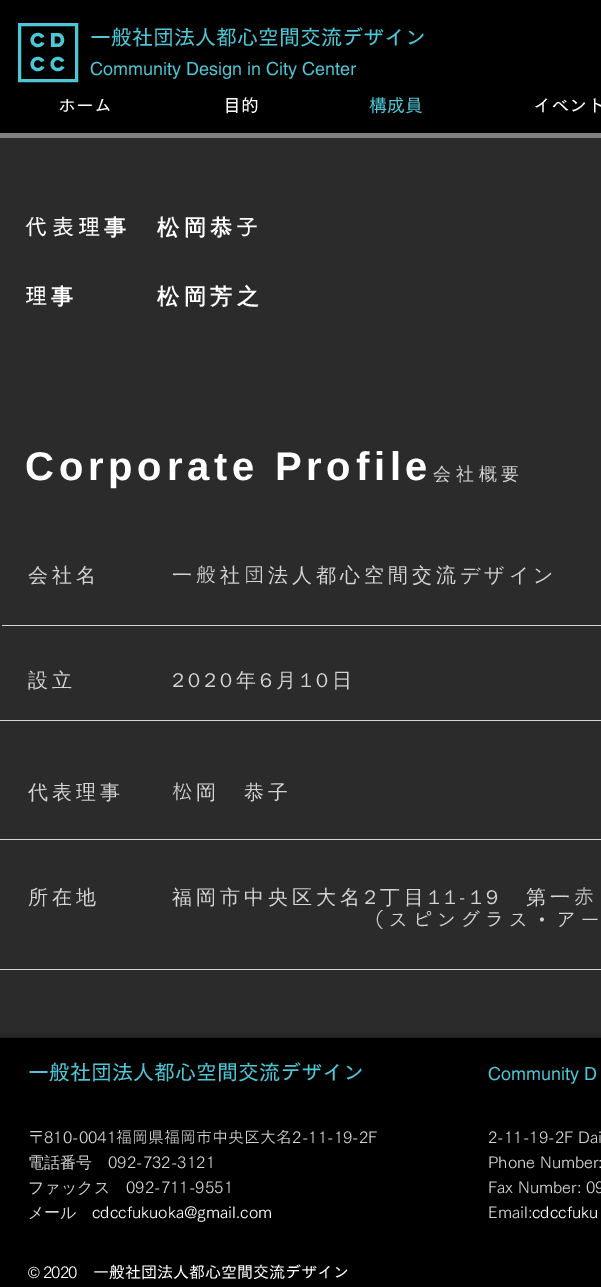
%!PS
<< /PageSize [601 1287] /PageUsesTransparency true >> setpagedevice
/rgb { 3 { 255 div 3 1 roll } repeat setrgbcolor } def
/font { [ exch dup neg 0 0 3 -1 roll 0 0 ] selectfont } def
/alpha { dup .setfillconstantalpha .setstrokeconstantalpha } def
/roundrect { 5 dict begin { /r /h /w /y /x } { exch def } forall
  x r add y moveto x w add y 2 copy h add r arct x w add y h add x 1 index r arct
  x y h add x y r arct x y 2 copy exch w add exch r arct closepath end } def
/shadow { 12 dict begin { /a /b /q /h /w /y /x } { exch def } forall gsave /was 0 def
  9 -2 -9 { dup b mul 4 div /e exch def 1 sub .425 mul 2.718 exch exp 1 add a .99 .min exch div /now exch def
    1 1 now sub 1 was sub div sub alpha /was now def
    w h .min e 2 mul add 0 gt { x e sub y e sub w e 2 mul add h e 2 mul add
      q e add b .6 mul add w h .min 2 div e add .min 0 .max roundrect fill } if } for grestore end } def
0 .pushpdf14devicefilter
0 1287 translate 1 -1 scale
4 setmiterlimit
43 43 43 rgb
0 0 601 1287 rectfill
128 128 128 rgb
0 133 601 5 rectfill
0 0 0 rgb
0 0 601 133 rectfill
77 198 214 rgb
3 setlinewidth
19.5 24.5 57 56 rectstroke
[
  [2 625 599 1 213 213 213]
  [0 720 601 1 213 213 213]
  [0 839 601 1 213 213 213]
  [0 969 601 1 213 213 213]
] { aload pop rgb rectfill } forall
0 0 0 rgb
0 1038 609 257 0 2.5 0.7 shadow
0 1038 601 249 rectfill
/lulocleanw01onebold-Bold 18 font
77 198 214 rgb
30 47 moveto 1 0 (CD) ashow
30 71 moveto 1 0 (CC) ashow
/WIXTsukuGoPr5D-SemiBold 21 font
90 45 moveto (一般社団法人都心空間交流デザイン) show
/helvetica-Regular 18 font
90 75 moveto (Community Design in City Center) show
/WIXTsukuGoPr5D-SemiBold 18 font
255 255 255 rgb
58 112 moveto (ホーム) show
223 112 moveto (目的) show
77 198 214 rgb
369 112 moveto (構成員) show
255 255 255 rgb
533 112 moveto (イベント) show
/WIXTsukuGoPr5D-SemiBold 22 font
25 235 moveto 4.5 0 (代表理) ashow
/WenQuanYiZenHei-Bold 22 font
104 235 moveto 4.5 0 (事　松岡恭) ashow
/WIXTsukuGoPr5D-SemiBold 22 font
236 235 moveto 4.5 0 (子) ashow
25 304 moveto 4.5 0 (理) ashow
/WenQuanYiZenHei-Bold 22 font
51 304 moveto 4.5 0 (事　　　松岡芳之) ashow
/LiberationSans-Bold 40 font
25 480 moveto 4.75 0 (Corporate Profile) ashow
/WenQuanYiZenHei-Medium 18 font
212 212 212 rgb
433 480 moveto 4.75 0 (会社概要) ashow
/WenQuanYiZenHei-Medium 20 font
28 582 moveto 4 0 (会社名　　　一) ashow
/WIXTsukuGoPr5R-Regular 20 font
196 582 moveto 4 0 (般) ashow
/WenQuanYiZenHei-Medium 20 font
220 582 moveto 4 0 (社) ashow
/WIXTsukuGoPr5R-Regular 20 font
244 582 moveto 4 0 (団) ashow
/WenQuanYiZenHei-Medium 20 font
268 582 moveto 4 0 (法人都心空間交流デザイン) ashow
28 687 moveto 4 0 (設立　　　　2020年6月10日) ashow
28 799 moveto 4 0 (代表理事) ashow
/WIXTsukuGoPr5R-Regular 20 font
172 799 moveto 4 0 (松) ashow
/WenQuanYiZenHei-Medium 20 font
196 799 moveto 4 0 (岡　恭子) ashow
28 904 moveto 4 0 (所在地　　　福岡市中央区大名2丁目11-19　第一) ashow
/WIXTsukuGoPr5R-Regular 20 font
574 904 moveto 4 0 (赤) ashow
364 927 moveto 4 0 (（スピングラス・アー) ashow
/WIXTsukuGoPr5D-SemiBold 21 font
77 198 214 rgb
28 1080 moveto (一般社団法人都心空間交流デザイン) show
/helvetica-Regular 18 font
488 1080 moveto (Community D) show
/WIXTsukuGoPr5R-Regular 16 font
212 212 212 rgb
28 1143 moveto (〒810-0041福岡県福岡市中央区大名2-11-19-2F) show
/WenQuanYiZenHei-Medium 16 font
28 1168 moveto (電話番号) show
/WIXTsukuGoPr5R-Regular 16 font
108 1168 moveto (092-732-3121) show
/WenQuanYiZenHei-Medium 16 font
28 1193 moveto (ファックス) show
/WIXTsukuGoPr5R-Regular 16 font
126 1193 moveto (092-711-9551) show
/WenQuanYiZenHei-Medium 16 font
28 1218 moveto (メール) show
/WIXTsukuGoPr5R-Regular 16 font
255 255 255 rgb
92 1218 moveto (cdccfukuoka@gmail.com) show
212 212 212 rgb
[
  [(2-11-19-2F Dai) 488 1143]
  [(Phone Number:) 488 1168]
  [(Fax Number: 09) 488 1193]
  [(Email:) 488 1218]
] { aload pop moveto show } forall
255 255 255 rgb
532 1218 moveto (cdccfuku) show
/LiberationSans-Regular 16 font
28 1278 moveto -1 0 (©) ashow
/WIXTsukuGoPr5R-Regular 16 font
43 1278 moveto -1 0 (2020) ashow
/WIXTsukuGoPr5D-SemiBold 16 font
93 1278 moveto (一般社団法人都心空間交流デザイン) show
.poppdf14devicefilter showpage
